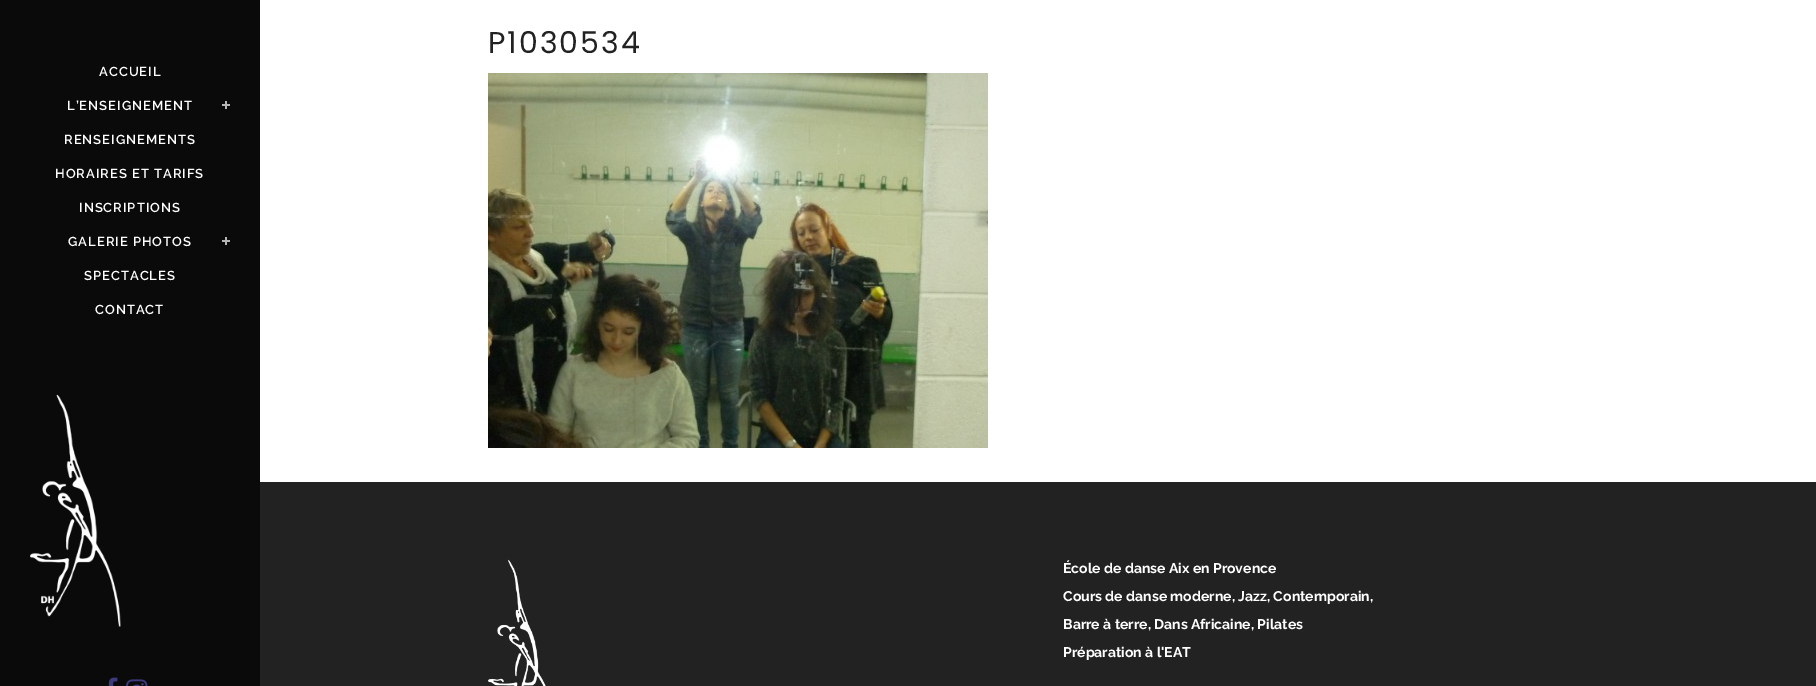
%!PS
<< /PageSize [1816 686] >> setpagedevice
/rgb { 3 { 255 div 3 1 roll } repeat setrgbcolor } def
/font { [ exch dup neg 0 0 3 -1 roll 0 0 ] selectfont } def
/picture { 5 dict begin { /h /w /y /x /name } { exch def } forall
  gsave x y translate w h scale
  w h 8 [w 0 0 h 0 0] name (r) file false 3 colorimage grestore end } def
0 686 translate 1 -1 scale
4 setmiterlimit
255 255 255 rgb
0 0 1816 686 rectfill
(img/1.rgb) 488 73 500 375 picture
10 10 10 rgb
0 0 260 686 rectfill
(img/2.rgb) 222 101 8 8 picture
(img/2.rgb) 222 237 8 8 picture
(img/3.rgb) 30 394 91 233 picture
(img/4.rgb) 108 677 10 9 picture
(img/5.rgb) 126 679 22 7 picture
34 34 34 rgb
260 482 1556 204 rectfill
(img/6.rgb) 488 559 58 127 picture
/Poppins-Regular 30 font
488 53 moveto 2 0 (P1030534) ashow
/Raleway-SemiBold 13 font
255 255 255 rgb
99 76 moveto 1 0 (ACCUEIL) ashow
67 110 moveto 1 0 (L’ENSEIGNEMENT) ashow
64 144 moveto 1 0 (RENSEIGNEMENTS) ashow
55 178 moveto 1 0 (HORAIRES ET TARIFS) ashow
79 212 moveto 1 0 (INSCRIPTIONS) ashow
68 246 moveto 1 0 (GALERIE PHOTOS) ashow
84 280 moveto 1 0 (SPECTACLES) ashow
95 314 moveto 1 0 (CONTACT) ashow
/Raleway-Bold 14 font
[
  [(École de danse Aix en Provence) 1063 573]
  [(Cours de danse moderne, Jazz, Contemporain,) 1063 601]
  [(Barre à terre, Dans Africaine, Pilates) 1063 629]
  [(Préparation à l'EAT) 1063 657]
] { aload pop moveto show } forall
showpage
